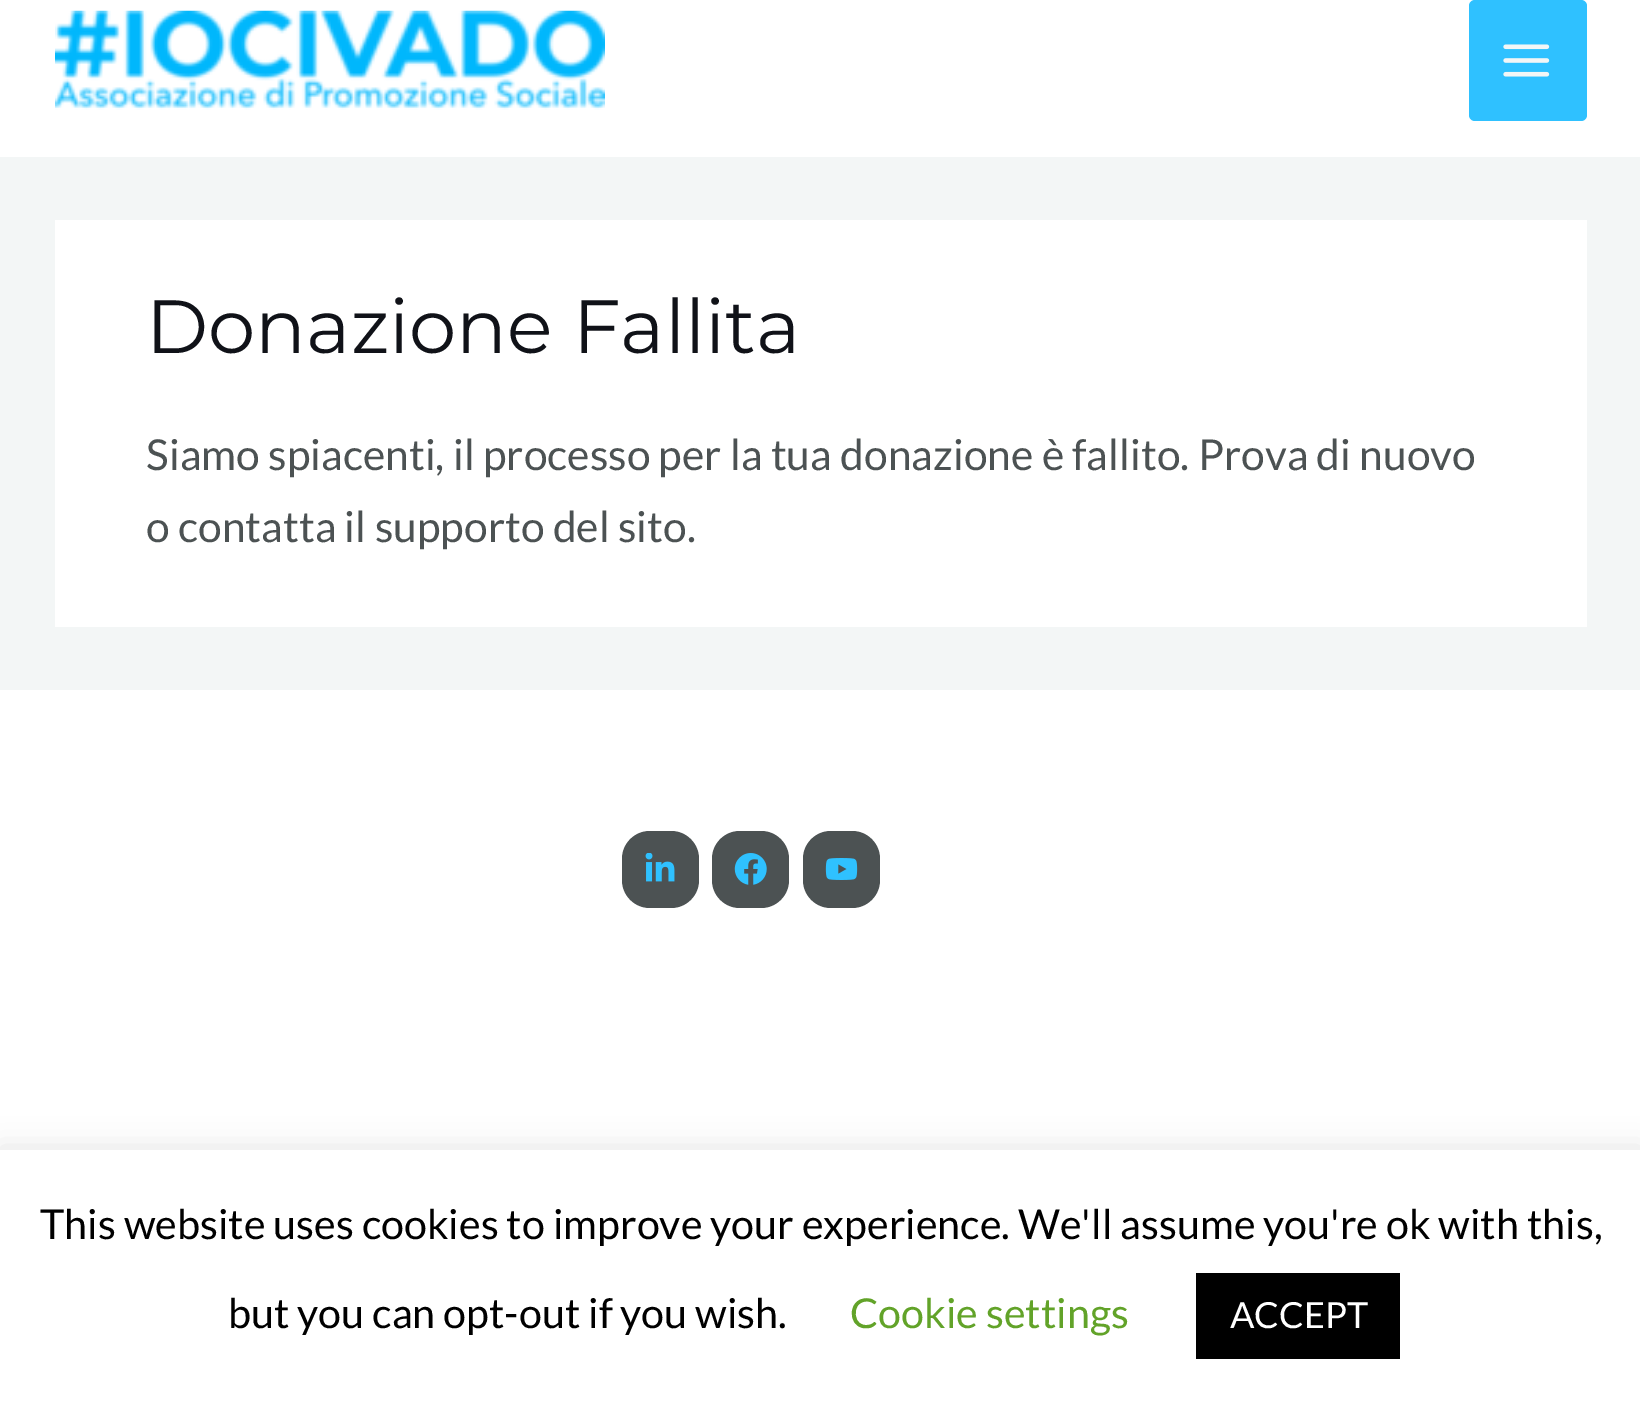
%!PS
<< /PageSize [1640 1405] /PageUsesTransparency true >> setpagedevice
/rgb { 3 { 255 div 3 1 roll } repeat setrgbcolor } def
/font { [ exch dup neg 0 0 3 -1 roll 0 0 ] selectfont } def
/alpha { dup .setfillconstantalpha .setstrokeconstantalpha } def
/roundrect { 5 dict begin { /r /h /w /y /x } { exch def } forall
  x r add y moveto x w add y 2 copy h add r arct x w add y h add x 1 index r arct
  x y h add x y r arct x y 2 copy exch w add exch r arct closepath end } def
/shadow { 12 dict begin { /a /b /q /h /w /y /x } { exch def } forall gsave /was 0 def
  9 -2 -9 { dup b mul 4 div /e exch def 1 sub .425 mul 2.718 exch exp 1 add a .99 .min exch div /now exch def
    1 1 now sub 1 was sub div sub alpha /was now def
    w h .min e 2 mul add 0 gt { x e sub y e sub w e 2 mul add h e 2 mul add
      q e add b .6 mul add w h .min 2 div e add .min 0 .max roundrect fill } if } for grestore end } def
/picture { 5 dict begin { /h /w /y /x /name } { exch def } forall
  gsave x y translate w h scale
  w h 8 [w 0 0 h 0 0] name (r) file false 3 colorimage grestore end } def
0 .pushpdf14devicefilter
0 1405 translate 1 -1 scale
4 setmiterlimit
243 246 246 rgb
0 0 1640 1405 rectfill
255 255 255 rgb
0 0 1640 157 rectfill
(img/1.rgb) 55 10 550 100 picture
47 193 255 rgb
1469 0 118 121 6 roundrect fill
(img/2.rgb) 1503 44 47 33 picture
255 255 255 rgb
55 220 1532 407 rectfill
0 690 1640 460 rectfill
76 82 83 rgb
622 831 77 77 28 roundrect fill
(img/3.rgb) 645 853 30 29 picture
712 831 77 77 28 roundrect fill
(img/4.rgb) 734 853 33 32 picture
803 831 77 77 28 roundrect fill
(img/5.rgb) 825 858 33 22 picture
172 171 171 rgb
0 1147 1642 256 0 14 0.3 shadow
255 255 255 rgb
0 1150 1640 255 rectfill
0 0 0 rgb
1196 1273 204 86 rectfill
/Montserrat-Regular 75.25 font
16 18 24 rgb
146 353 moveto (Donazione Fallita) show
/Lato-Regular 42.65 font
76 82 83 rgb
146 470 moveto (Siamo spiacenti, il processo per la tua donazione è fallito. Prova di nuovo) show
146 542 moveto (o contatta il supporto del sito.) show
/Lato-Regular 41.25 font
0 0 0 rgb
40 1239 moveto (This website uses cookies to improve your experience. We'll assume you're ok with this,) show
228 1328 moveto (but you can opt-out if you wish.) show
98 163 41 rgb
850 1328 moveto (Cookie settings) show
/Lato-Regular 36 font
255 255 255 rgb
1230 1328 moveto (ACCEPT) show
.poppdf14devicefilter showpage
